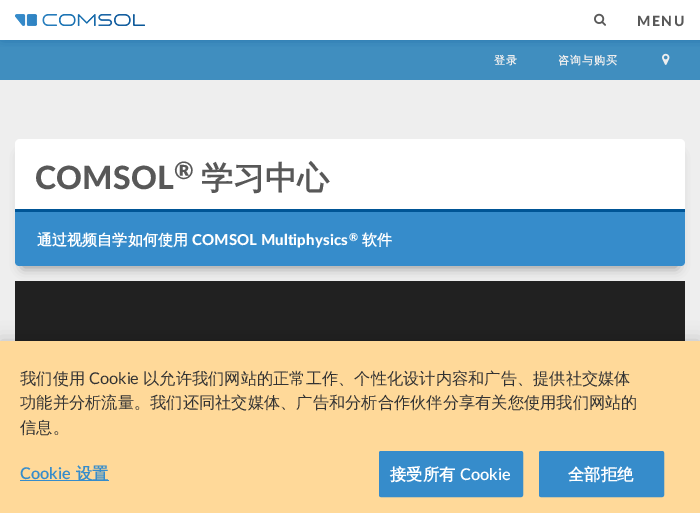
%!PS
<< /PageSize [700 513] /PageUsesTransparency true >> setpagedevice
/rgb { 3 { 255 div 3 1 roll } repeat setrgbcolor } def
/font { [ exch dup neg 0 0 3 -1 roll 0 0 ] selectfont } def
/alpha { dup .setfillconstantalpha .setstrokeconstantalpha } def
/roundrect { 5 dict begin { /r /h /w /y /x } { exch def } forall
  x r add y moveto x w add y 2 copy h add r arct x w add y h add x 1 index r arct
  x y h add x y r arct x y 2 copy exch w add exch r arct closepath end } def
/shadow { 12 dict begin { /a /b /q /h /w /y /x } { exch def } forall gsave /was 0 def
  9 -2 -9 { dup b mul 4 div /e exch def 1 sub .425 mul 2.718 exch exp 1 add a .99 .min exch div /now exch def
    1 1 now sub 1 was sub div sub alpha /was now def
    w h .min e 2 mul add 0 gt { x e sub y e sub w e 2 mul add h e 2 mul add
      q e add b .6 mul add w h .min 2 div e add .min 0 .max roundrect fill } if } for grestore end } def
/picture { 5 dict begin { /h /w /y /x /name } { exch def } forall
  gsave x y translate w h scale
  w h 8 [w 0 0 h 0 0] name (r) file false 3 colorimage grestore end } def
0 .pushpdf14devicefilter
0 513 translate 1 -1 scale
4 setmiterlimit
255 255 255 rgb
0 0 700 513 rectfill
64 142 191 rgb
0 40 700 40 rectfill
(img/3.rgb) 662 53 8 12 picture
gsave
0 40 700 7 rectclip
0 85 150 rgb
3 -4 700 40 0 5.5 1 shadow
grestore
(img/1.rgb) 15 14 130 12 picture
(img/2.rgb) 594 13 12 13 picture
238 238 238 rgb
0 80 700 261 rectfill
103 103 103 rgb
23 156 654 111 0 6 0.74 shadow
255 255 255 rgb
15 139 670 127 5 roundrect fill
54 140 203 rgb
15 209 moveto 685 209 lineto 685 262 lineto 685 264 683 266 681 266 curveto 19 266 lineto 17 266 15 264 15 262 curveto closepath fill
0 85 150 rgb
15 209 670 3 rectfill
33 33 33 rgb
15 281 670 60 rectfill
0 0 0 rgb
0 341 700 172 0 9 0.2 shadow
255 217 153 rgb
0 341 700 172 rectfill
54 140 203 rgb
20 480 89 1 rectfill
379.5 451.5 143 45 1.5 roundrect gsave fill grestore
stroke
539.5 451.5 124 45 1.5 roundrect gsave fill grestore
stroke
/Lato-Black 14 font
88 88 88 rgb
637 26 moveto 1.5 0 (MENU) ashow
/WenQuanYiZenHei-Bold 11 font
238 238 238 rgb
494 64 moveto 1 0 (登录) ashow
558 64 moveto 1 0 (咨询与购买) ashow
/Lato-Black 32 font
88 88 88 rgb
35 189 moveto 0.1 0 (COMSOL) ashow
/Lato-Black 24 font
174 179 moveto 0.1 0 (®) ashow
/WenQuanYiZenHei-Bold 32 font
201 189 moveto 0.1 0 (学习中心) ashow
/WenQuanYiZenHei-Bold 15 font
255 255 255 rgb
37 245 moveto 0.1 0 (通过视频自学如何使用) ashow
/Lato-Black 15 font
192 245 moveto 0.1 0 (COMSOL Multiphysics) ashow
/Lato-Black 11 font
349 241 moveto 0.1 0 (®) ashow
/WenQuanYiZenHei-Bold 15 font
362 245 moveto 0.1 0 (软件) ashow
/WenQuanYiZenHei-Medium 16.25 font
51 51 51 rgb
20 384 moveto (我们使用) show
/Lato-Regular 16.25 font
89 384 moveto (Cookie) show
/WenQuanYiZenHei-Medium 16.25 font
[
  [(以允许我们网站的正常工作、个性化设计内容和广告、提供社交媒体) 143 384]
  [(功能并分析流量。我们还同社交媒体、广告和分析合作伙伴分享有关您使用我们网站的) 20 408]
  [(信息。) 20 433]
] { aload pop moveto show } forall
/Lato-SemiBold 16.25 font
54 140 203 rgb
20 479 moveto (Cookie) show
/WenQuanYiZenHei-Bold 16.25 font
76 479 moveto (设置) show
255 255 255 rgb
390 480 moveto (接受所有) show
/Lato-SemiBold 16.25 font
460 480 moveto (Cookie) show
/WenQuanYiZenHei-Bold 16.25 font
568 480 moveto (全部拒绝) show
.poppdf14devicefilter showpage
